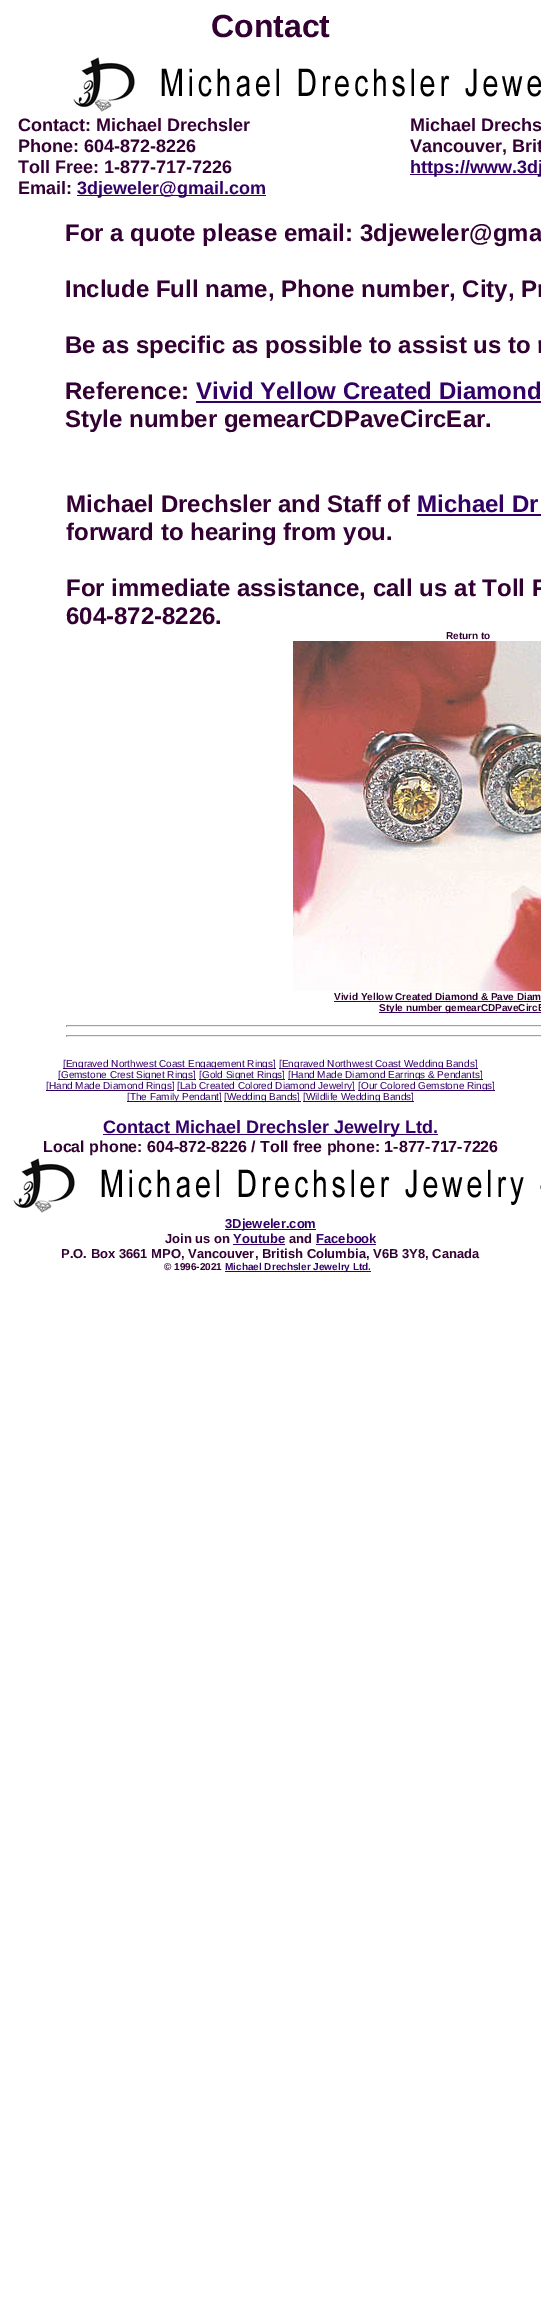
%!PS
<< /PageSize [541 2314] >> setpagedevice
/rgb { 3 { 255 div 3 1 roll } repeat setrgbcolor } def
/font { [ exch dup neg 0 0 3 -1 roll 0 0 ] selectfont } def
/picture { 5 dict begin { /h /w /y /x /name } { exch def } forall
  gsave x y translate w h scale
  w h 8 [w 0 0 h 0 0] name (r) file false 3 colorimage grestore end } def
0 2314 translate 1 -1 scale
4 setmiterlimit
255 255 255 rgb
0 0 541 2314 rectfill
(img/1.rgb) 72 57 469 55 picture
[
  [77 195 189 1 51 0 102]
  [410 174 131 1 51 0 102]
  [196 401 345 2 51 0 102]
  [417 514 124 2 51 0 102]
] { aload pop rgb rectfill } forall
(img/2.rgb) 293 641 248 350 picture
[
  [334 1001 207 1 51 0 102]
  [379 1012 162 1 51 0 102]
  [66 1025 475 1 159 159 159]
  [66 1026 475 1 238 238 238]
  [66 1025 1 2 159 159 159]
  [66 1035 475 1 159 159 159]
  [66 1036 475 1 238 238 238]
  [66 1035 1 2 159 159 159]
  [63 1068 213 1 51 0 102]
  [279 1068 199 1 51 0 102]
  [58 1079 138 1 51 0 102]
  [199 1079 86 1 51 0 102]
  [288 1079 195 1 51 0 102]
  [46 1090 128 1 51 0 102]
  [177 1090 178 1 51 0 102]
  [358 1090 137 1 51 0 102]
  [127 1101 95 1 51 0 102]
  [224 1101 77 1 51 0 102]
  [303 1101 111 1 51 0 102]
  [103 1134 335 1 51 0 102]
] { aload pop rgb rectfill } forall
(img/3.rgb) 12 1158 529 55 picture
[
  [225 1229 91 1 51 0 102]
  [233 1244 52 1 51 0 102]
  [316 1244 60 1 51 0 102]
  [225 1271 146 1 51 0 102]
] { aload pop rgb rectfill } forall
/LiberationSans-Bold 32 font
51 0 51 rgb
211 37 moveto (Contact) show
/LiberationSans-Bold 18 font
[
  [(Contact: Michael Drechsler) 18 131]
  [(Phone: 604-872-8226) 18 152]
  [(Toll Free: 1-877-717-7226) 18 173]
  [(Email:) 18 194]
] { aload pop moveto show } forall
51 0 102 rgb
77 194 moveto (3djeweler@gmail.com) show
51 0 51 rgb
410 131 moveto (Michael Drechs) show
410 152 moveto (Vancouver, Brit) show
51 0 102 rgb
410 173 moveto (https://www.3dj) show
/LiberationSans-Bold 24 font
51 0 51 rgb
[
  [(For a quote please email: 3djeweler@gma) 65 241]
  [(Include Full name, Phone number, City, Pr) 65 297]
  [(Be as specific as possible to assist us to r) 65 353]
  [(Reference:) 65 399]
] { aload pop moveto show } forall
51 0 102 rgb
196 399 moveto (Vivid Yellow Created Diamond) show
51 0 51 rgb
65 427 moveto (Style number gemearCDPaveCircEar.) show
66 512 moveto (Michael Drechsler and Staff of) show
51 0 102 rgb
417 512 moveto (Michael Dr) show
51 0 51 rgb
[
  [(forward to hearing from you.) 66 540]
  [(For immediate assistance, call us at Toll F) 66 596]
  [(604-872-8226.) 66 624]
] { aload pop moveto show } forall
/LiberationSans-Bold 10 font
[
  [(Return to) 446 639]
  [(Vivid Yellow Created Diamond & Pave Diam) 334 1000]
  [(Style number gemearCDPaveCircE) 379 1011]
] { aload pop moveto show } forall
/LiberationSans-Regular 10 font
51 0 102 rgb
[
  [([Engraved Northwest Coast Engagement Rings]) 63 1067]
  [([Engraved Northwest Coast Wedding Bands]) 279 1067]
  [([Gemstone Crest Signet Rings]) 58 1078]
  [([Gold Signet Rings]) 199 1078]
  [([Hand Made Diamond Earrings & Pendants]) 288 1078]
  [([Hand Made Diamond Rings]) 46 1089]
  [([Lab Created Colored Diamond Jewelry]) 177 1089]
  [([Our Colored Gemstone Rings]) 358 1089]
  [([The Family Pendant]) 127 1100]
  [([Wedding Bands]) 224 1100]
  [([Wildlife Wedding Bands]) 303 1100]
] { aload pop moveto show } forall
/LiberationSans-Bold 18 font
103 1133 moveto (Contact Michael Drechsler Jewelry Ltd.) show
/LiberationSans-Bold 16 font
51 0 51 rgb
43 1152 moveto (Local phone: 604-872-8226 / Toll free phone: 1-877-717-7226) show
/LiberationSans-Bold 13 font
51 0 102 rgb
225 1228 moveto (3Djeweler.com) show
51 0 51 rgb
165 1243 moveto (Join us on) show
51 0 102 rgb
233 1243 moveto (Youtube) show
51 0 51 rgb
289 1243 moveto (and) show
51 0 102 rgb
316 1243 moveto (Facebook) show
51 0 51 rgb
61 1258 moveto (P.O. Box 3661 MPO, Vancouver, British Columbia, V6B 3Y8, Canada) show
/LiberationSans-Bold 10 font
164 1270 moveto (© 1996-2021) show
51 0 102 rgb
225 1270 moveto (Michael Drechsler Jewelry Ltd.) show
showpage
